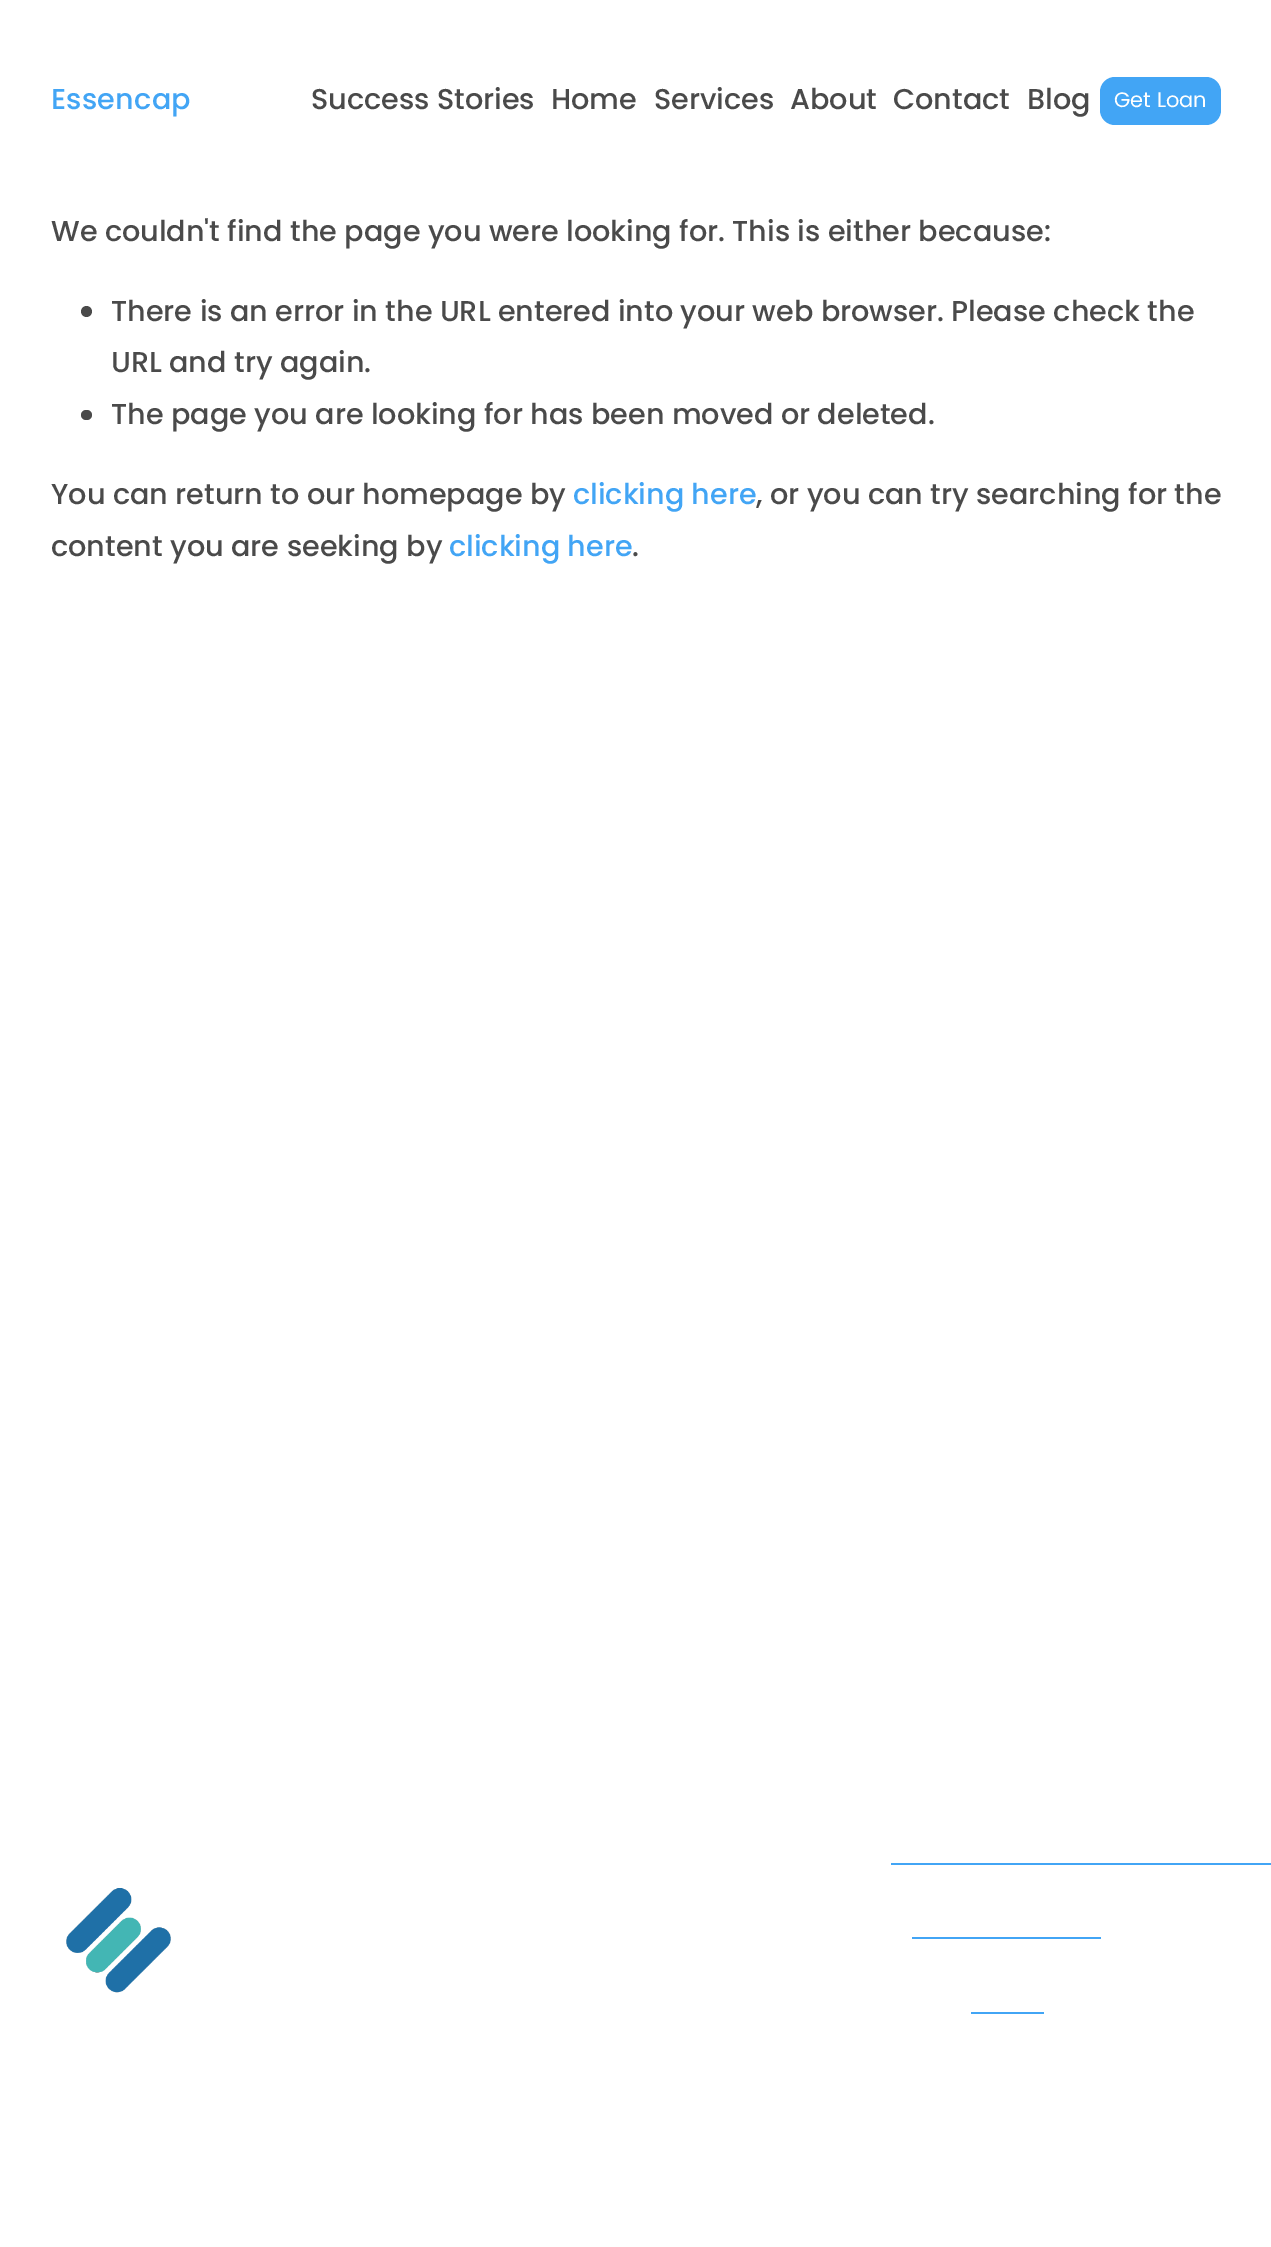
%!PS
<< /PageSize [1271 2247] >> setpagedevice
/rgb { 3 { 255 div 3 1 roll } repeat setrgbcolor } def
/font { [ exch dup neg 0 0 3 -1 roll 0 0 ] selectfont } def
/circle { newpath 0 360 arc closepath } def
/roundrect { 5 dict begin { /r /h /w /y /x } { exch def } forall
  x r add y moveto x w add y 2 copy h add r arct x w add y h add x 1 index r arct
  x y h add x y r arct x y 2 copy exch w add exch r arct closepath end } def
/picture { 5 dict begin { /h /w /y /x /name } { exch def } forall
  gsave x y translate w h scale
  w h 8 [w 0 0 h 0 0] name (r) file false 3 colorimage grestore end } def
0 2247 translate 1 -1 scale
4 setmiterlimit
255 255 255 rgb
0 0 1271 2247 rectfill
66 165 245 rgb
1100 77 121 48 15 roundrect fill
74 74 74 rgb
86.5 311.5 5.5 circle fill
81 410 11 10 5 roundrect fill
(img/1.rgb) 66 1888 105 105 picture
[
  [891 1863 380 2 66 165 245]
  [912 1937 189 2 66 165 245]
  [971 2012 73 2 66 165 245]
] { aload pop rgb rectfill } forall
/Poppins-Medium 28.65 font
51 109 moveto 0.25 0 (Essencap) ashow
74 74 74 rgb
[
  [(Success Stories) 311 109]
  [(Home) 551 109]
  [(Services) 654 109]
  [(About) 790 109]
  [(Contact) 893 109]
  [(Blog) 1027 109]
] { aload pop moveto show } forall
/Poppins-Regular 21 font
255 255 255 rgb
1114 107 moveto (Get Loan) show
/Poppins-Medium 28.65 font
74 74 74 rgb
[
  [(We couldn't find the page you were looking for. This is either because:) 51 241]
  [(There is an error in the URL entered into your web browser. Please check the) 111 321]
  [(URL and try again.) 111 372]
  [(The page you are looking for has been moved or deleted.) 111 424]
  [(You can return to our homepage by) 51 504]
] { aload pop moveto show } forall
66 165 245 rgb
573 504 moveto (clicking here) show
74 74 74 rgb
756 504 moveto (, or you can try searching for the) show
51 556 moveto (content you are seeking by) show
66 165 245 rgb
449 556 moveto (clicking here) show
74 74 74 rgb
632 556 moveto (.) show
showpage
